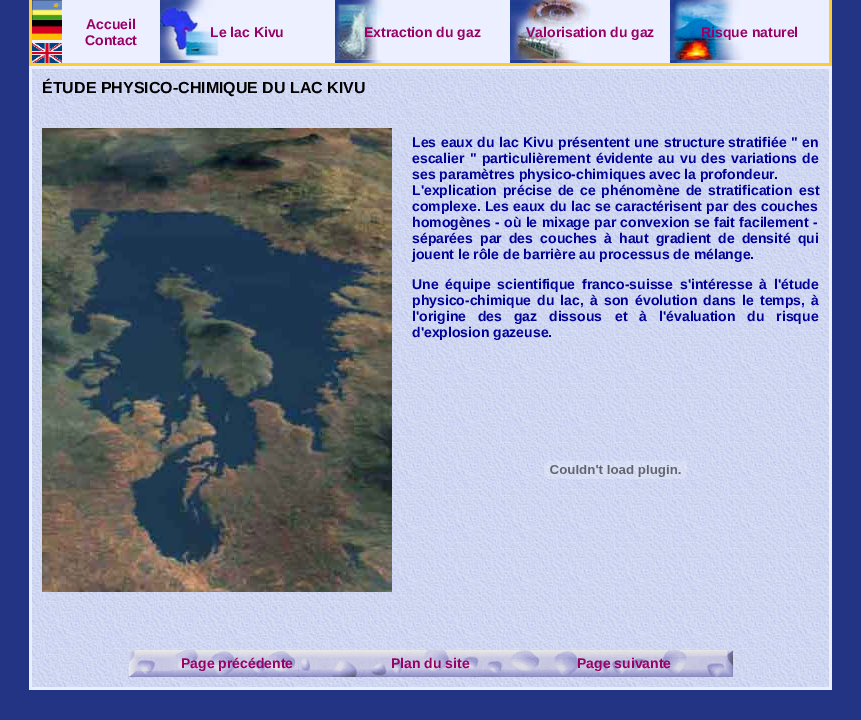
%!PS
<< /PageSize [861 720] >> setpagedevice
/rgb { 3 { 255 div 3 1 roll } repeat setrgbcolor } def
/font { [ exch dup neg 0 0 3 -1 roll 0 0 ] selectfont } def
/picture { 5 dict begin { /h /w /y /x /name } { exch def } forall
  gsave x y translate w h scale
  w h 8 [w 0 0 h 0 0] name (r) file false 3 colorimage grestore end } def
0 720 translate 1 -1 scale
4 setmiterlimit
35 52 133 rgb
0 0 861 720 rectfill
255 204 51 rgb
29 0 803 66 rectfill
235 239 255 rgb
32 0 797 63 rectfill
(img/1.rgb) 32 0 30 20 picture
(img/2.rgb) 32 20 30 20 picture
(img/3.rgb) 32 43 30 20 picture
(img/4.rgb) 160 0 175 63 picture
(img/5.rgb) 335 0 48 63 picture
(img/6.rgb) 510 0 81 63 picture
(img/7.rgb) 670 0 74 63 picture
29 66 803 624 rectfill
(img/8.rgb) 32 69 797 618 picture
(img/9.rgb) 42 128 350 232 picture
(img/10.rgb) 42 360 350 232 picture
(img/11.rgb) 544 461 143 18 picture
(img/12.rgb) 129 650 217 27 picture
(img/13.rgb) 346 650 170 27 picture
(img/14.rgb) 516 650 217 27 picture
/LiberationSans-Bold 14 font
153 0 102 rgb
[
  [(Accueil) 86 29]
  [(Contact) 85 45]
  [(Le lac Kivu) 210 37]
  [(Extraction du gaz) 364 37]
  [(Valorisation du gaz) 526 37]
  [(Risque naturel) 701 37]
] { aload pop moveto show } forall
/LiberationSans-Bold 16 font
0 0 0 rgb
42 93 moveto (ÉTUDE PHYSICO-CHIMIQUE DU LAC KIVU) show
/LiberationSans-Bold 14 font
0 0 153 rgb
412 147 moveto 0.75 0 32 (Les eaux du lac Kivu présentent une structure) widthshow
728 147 moveto 0.75 0 32 (stratifiée " en) widthshow
412 163 moveto 1.5 0 32 (escalier " particulièrement évidente) widthshow
658 163 moveto 1.5 0 32 (au vu des variations de) widthshow
412 179 moveto (ses paramètres physico-chimiques avec la profondeur.) show
412 195 moveto 2 0 32 (L'explication précise de ce phénomène de stratification) widthshow
799 195 moveto (est) show
412 211 moveto 0.5 0 32 (complexe. Les eaux du lac se caractérisent par des couches) widthshow
412 227 moveto (homogènes) show
495 227 moveto 0.5 0 32 (- où le mixage par convexion se fait facilement -) widthshow
412 243 moveto (séparées) show
480 243 moveto 3.25 0 32 (par des couches à haut gradient de densité qui) widthshow
412 259 moveto (jouent le rôle de barrière au processus de mélange.) show
412 289 moveto 3 0 32 (Une équipe scientifique) widthshow
582 289 moveto 3 0 32 (franco-suisse s'intéresse à l'étude) widthshow
412 305 moveto 2.25 0 32 (physico-chimique du lac,) widthshow
590 305 moveto 2.25 0 32 (à son évolution dans le temps, à) widthshow
412 321 moveto 8 0 32 (l'origine des gaz dissous) widthshow
615 321 moveto 8 0 32 (et à l'évaluation du risque) widthshow
412 337 moveto (d'explosion gazeuse.) show
153 0 102 rgb
[
  [(Page précédente) 181 668]
  [(Plan du site) 391 668]
  [(Page suivante) 577 668]
] { aload pop moveto show } forall
showpage
